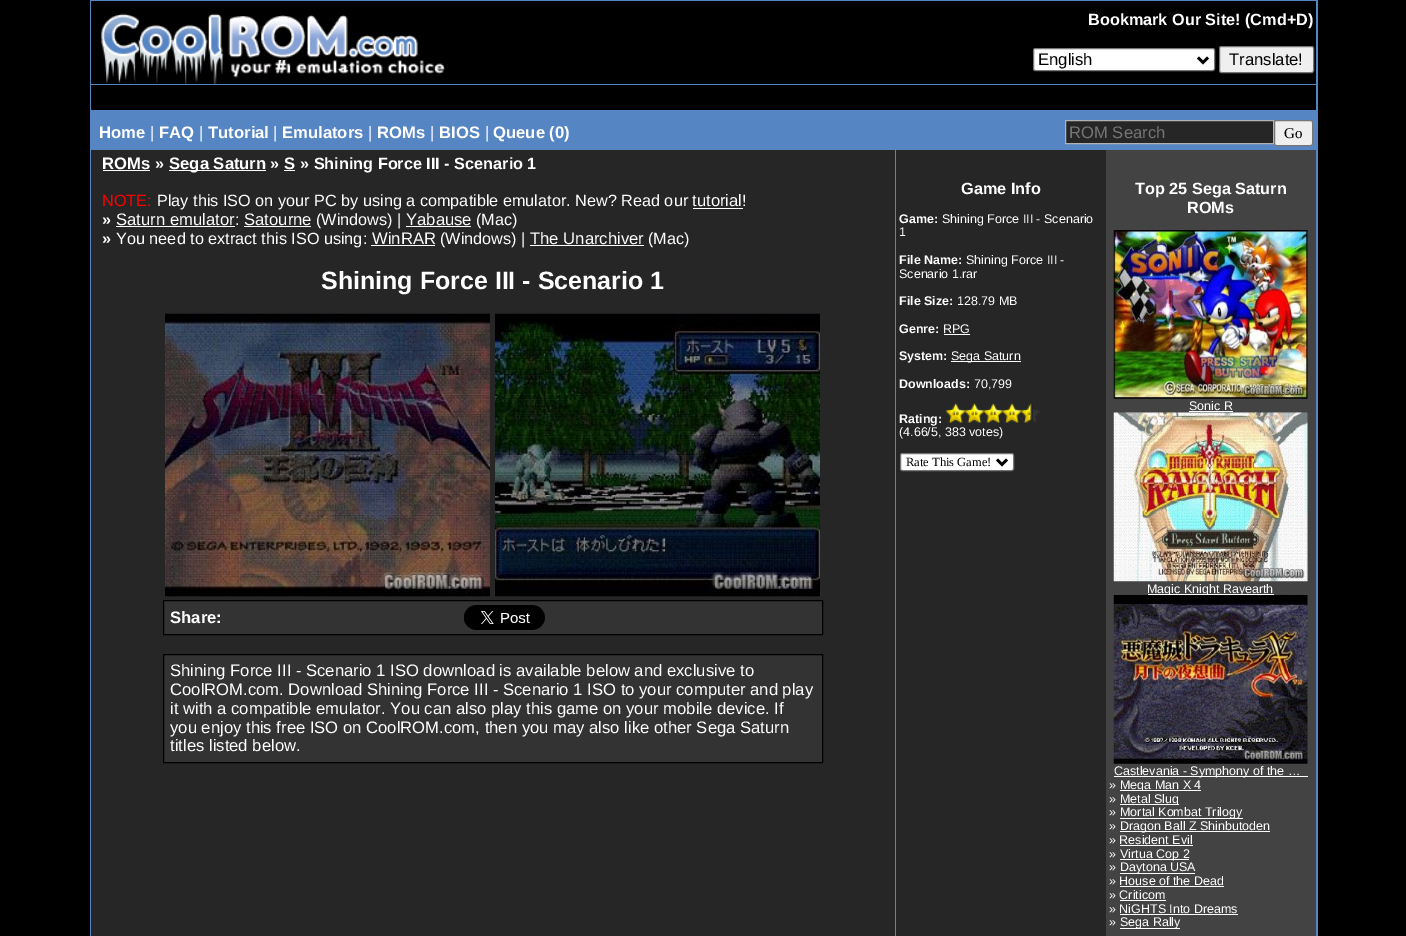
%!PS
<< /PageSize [1406 936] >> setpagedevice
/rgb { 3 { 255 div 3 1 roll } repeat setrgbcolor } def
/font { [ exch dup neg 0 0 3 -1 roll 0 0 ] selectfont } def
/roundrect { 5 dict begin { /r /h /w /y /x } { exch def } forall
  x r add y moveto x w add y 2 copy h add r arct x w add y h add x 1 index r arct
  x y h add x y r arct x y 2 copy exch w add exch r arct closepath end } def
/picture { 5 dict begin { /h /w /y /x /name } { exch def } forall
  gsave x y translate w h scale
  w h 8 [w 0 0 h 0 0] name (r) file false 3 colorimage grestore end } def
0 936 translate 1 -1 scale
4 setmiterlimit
0 0 0 rgb
0 0 1406 936 rectfill
86 133 196 rgb
90 0 1228 936 rectfill
0 0 0 rgb
91 1 1225 83 rectfill
(img/1.rgb) 101 13 345 71 picture
255 255 255 rgb
1033.5 48.5 181 22 2 roundrect gsave fill grestore
118 118 118 rgb
stroke
0 0 0 rgb
2.5 setlinewidth
1198 57.5 moveto 1203 62.5 lineto 1208 57.5 lineto stroke
239 239 239 rgb
1219.5 46.5 94 26 2 roundrect gsave fill grestore
118 118 118 rgb
1 setlinewidth
stroke
0 0 0 rgb
91 85 1225 25 rectfill
38 38 38 rgb
1065.5 120.5 moveto 1273.5 120.5 lineto 1273.5 143.5 lineto 1065.5 143.5 lineto closepath gsave fill grestore
178 178 178 rgb
stroke
239 239 239 rgb
1274.5 120.5 38 25 2 roundrect gsave fill grestore
118 118 118 rgb
stroke
[
  [91 150 804 786 38 38 38]
  [103 170 47 1 255 255 255]
  [169 170 97 1 255 255 255]
  [284 170 11 1 255 255 255]
  [693 208 50 1 255 255 255]
  [116 226 119 1 255 255 255]
  [244 226 67 1 255 255 255]
  [406 226 65 1 255 255 255]
  [371 245 64 1 255 255 255]
  [530 245 114 1 255 255 255]
] { aload pop rgb rectfill } forall
(img/2.rgb) 165 313 325 284 picture
(img/3.rgb) 495 313 325 284 picture
51 51 51 rgb
163.5 600.5 moveto 822.5 600.5 lineto 822.5 634.5 lineto 163.5 634.5 lineto closepath gsave fill grestore
0 0 0 rgb
stroke
(img/4.rgb) 464 605 81 25 picture
51 51 51 rgb
163.5 654.5 moveto 822.5 654.5 lineto 822.5 762.5 lineto 163.5 762.5 lineto closepath gsave fill grestore
0 0 0 rgb
stroke
[
  [896 150 210 786 38 38 38]
  [944 334 26 1 255 255 255]
  [951 361 70 1 255 255 255]
] { aload pop rgb rectfill } forall
(img/5.rgb) 946 403 19 20 picture
(img/6.rgb) 965 403 19 20 picture
(img/7.rgb) 983 403 20 20 picture
(img/8.rgb) 1002 403 20 20 picture
(img/9.rgb) 1021 403 19 20 picture
900.5 453.5 113 17 2 roundrect gsave fill grestore
118 118 118 rgb
stroke
0 0 0 rgb
2.5 setlinewidth
997 459.5 moveto 1002 464.5 lineto 1007 459.5 lineto stroke
67 67 67 rgb
1106 150 210 786 rectfill
(img/10.rgb) 1113 230 195 169 picture
255 255 255 rgb
1189 411 44 1 rectfill
(img/11.rgb) 1113 412 195 170 picture
1148 594 126 1 rectfill
(img/12.rgb) 1113 595 195 169 picture
[
  [1114 776 194 1 255 255 255]
  [1120 790 81 1 255 255 255]
  [1120 804 59 1 255 255 255]
  [1120 818 123 1 255 255 255]
  [1120 831 150 1 255 255 255]
  [1120 845 73 1 255 255 255]
  [1120 859 69 1 255 255 255]
  [1120 873 75 1 255 255 255]
  [1120 886 104 1 255 255 255]
  [1120 900 46 1 255 255 255]
  [1120 914 118 1 255 255 255]
  [1120 928 60 1 255 255 255]
] { aload pop rgb rectfill } forall
/LiberationSans-Bold 16.25 font
1088 25 moveto (Bookmark Our Site! \(Cmd+D\)) show
/LiberationSans-Regular 16.65 font
0 0 0 rgb
1038 65 moveto (English) show
1229 65 moveto (Translate!) show
/LiberationSans-Bold 16.65 font
255 255 255 rgb
99 138 moveto (Home) show
/LiberationSans-Regular 16.65 font
150 138 moveto (|) show
/LiberationSans-Bold 16.65 font
159 138 moveto (FAQ) show
/LiberationSans-Regular 16.65 font
199 138 moveto (|) show
/LiberationSans-Bold 16.65 font
208 138 moveto (Tutorial) show
/LiberationSans-Regular 16.65 font
273 138 moveto (|) show
/LiberationSans-Bold 16.65 font
282 138 moveto (Emulators) show
/LiberationSans-Regular 16.65 font
368 138 moveto (|) show
/LiberationSans-Bold 16.65 font
377 138 moveto (ROMs) show
/LiberationSans-Regular 16.65 font
430 138 moveto (|) show
/LiberationSans-Bold 16.65 font
439 138 moveto (BIOS) show
/LiberationSans-Regular 16.65 font
485 138 moveto (|) show
/LiberationSans-Bold 16.65 font
493 138 moveto (Queue \(0\)) show
/LiberationSans-Regular 16.65 font
117 117 117 rgb
1069 138 moveto (ROM Search) show
/LiberationSerif-Regular 15 font
0 0 0 rgb
1284 138 moveto (Go) show
/LiberationSans-Bold 16.65 font
255 255 255 rgb
102 169 moveto (ROMs) show
/LiberationSans-Bold 16.25 font
155 169 moveto (») show
/LiberationSans-Bold 16.65 font
169 169 moveto (Sega Saturn) show
/LiberationSans-Bold 16.25 font
270 169 moveto (») show
/LiberationSans-Bold 16.65 font
284 169 moveto (S) show
/LiberationSans-Bold 16.25 font
300 169 moveto (» Shining Force III - Scenario 1) show
/LiberationSans-Regular 16.25 font
255 0 0 rgb
102 206 moveto (NOTE:) show
255 255 255 rgb
157 206 moveto (Play this ISO on your PC by using a compatible emulator. New? Read our) show
/LiberationSans-Regular 16.65 font
692 206 moveto (tutorial) show
/LiberationSans-Regular 16.25 font
742 206 moveto (!) show
/LiberationSans-Bold 16.25 font
102 225 moveto (») show
/LiberationSans-Regular 16.65 font
116 225 moveto (Saturn emulator) show
/LiberationSans-Regular 16.25 font
235 225 moveto (:) show
/LiberationSans-Regular 16.65 font
244 225 moveto (Satourne) show
/LiberationSans-Regular 16.25 font
316 225 moveto (\(Windows\) |) show
/LiberationSans-Regular 16.65 font
406 225 moveto (Yabause) show
/LiberationSans-Regular 16.25 font
476 225 moveto (\(Mac\)) show
/LiberationSans-Bold 16.25 font
102 244 moveto (») show
/LiberationSans-Regular 16.25 font
116 244 moveto (You need to extract this ISO using:) show
/LiberationSans-Regular 16.65 font
372 244 moveto (WinRAR) show
/LiberationSans-Regular 16.25 font
440 244 moveto (\(Windows\) |) show
/LiberationSans-Regular 16.65 font
530 244 moveto (The Unarchiver) show
/LiberationSans-Regular 16.25 font
648 244 moveto (\(Mac\)) show
/LiberationSans-Bold 25 font
321 289 moveto (Shining Force III - Scenario 1) show
/LiberationSans-Bold 16.65 font
170 623 moveto (Share:) show
/LiberationSans-Regular 16.65 font
[
  [(Shining Force III - Scenario 1 ISO download is available below and exclusive to) 170 676]
  [(CoolROM.com. Download Shining Force III - Scenario 1 ISO to your computer and play) 170 695]
  [(it with a compatible emulator. You can also play this game on your mobile device. If) 170 714]
  [(you enjoy this free ISO on CoolROM.com, then you may also like other Sega Saturn) 170 733]
  [(titles listed below.) 170 751]
] { aload pop moveto show } forall
/LiberationSans-Bold 16.25 font
961 194 moveto (Game Info) show
/LiberationSans-Bold 12.5 font
899 223 moveto (Game:) show
/LiberationSans-Regular 12.5 font
942 223 moveto (Shining Force III - Scenario) show
899 236 moveto (1) show
/LiberationSans-Bold 12.5 font
899 264 moveto (File Name:) show
/LiberationSans-Regular 12.5 font
966 264 moveto (Shining Force III -) show
899 278 moveto (Scenario 1.rar) show
/LiberationSans-Bold 12.5 font
899 305 moveto (File Size:) show
/LiberationSans-Regular 12.5 font
957 305 moveto (128.79 MB) show
/LiberationSans-Bold 12.5 font
899 333 moveto (Genre:) show
/LiberationSans-Regular 12.5 font
943 333 moveto (RPG) show
/LiberationSans-Bold 12.5 font
899 360 moveto (System:) show
/LiberationSans-Regular 12.5 font
951 360 moveto (Sega Saturn) show
/LiberationSans-Bold 12.5 font
899 388 moveto (Downloads:) show
/LiberationSans-Regular 12.5 font
974 388 moveto (70,799) show
/LiberationSans-Bold 12.5 font
899 423 moveto (Rating:) show
/LiberationSans-Regular 12.5 font
899 436 moveto (\(4.66/5, 383 votes\)) show
/LiberationSerif-Regular 12.5 font
0 0 0 rgb
906 466 moveto (Rate This Game!) show
/LiberationSans-Bold 16.25 font
255 255 255 rgb
1135 194 moveto (Top 25 Sega Saturn) show
1187 213 moveto (ROMs) show
/LiberationSans-Regular 12.5 font
1189 410 moveto (Sonic R) show
gsave
1114 581 194 14 rectclip
1147 593 moveto (Magic Knight Rayearth) show
grestore
1114 775 moveto (Castlevania - Symphony of the …) show
1109 789 moveto (») show
gsave
1110 778 194 13 rectclip
1120 789 moveto (Mega Man X 4) show
grestore
1109 803 moveto (») show
gsave
1110 791 194 14 rectclip
1120 803 moveto (Metal Slug) show
grestore
[
  [(») 1109 816]
  [(Mortal Kombat Trilogy) 1120 816]
  [(») 1109 830]
  [(Dragon Ball Z Shinbutoden) 1120 830]
  [(» Resident Evil) 1109 844]
  [(») 1109 858]
  [(Virtua Cop 2) 1120 858]
  [(») 1109 871]
  [(Daytona USA) 1120 871]
  [(» House of the Dead) 1109 885]
  [(» Criticom) 1109 899]
  [(» NiGHTS Into Dreams) 1109 913]
  [(») 1109 926]
  [(Sega Rally) 1120 926]
] { aload pop moveto show } forall
showpage
